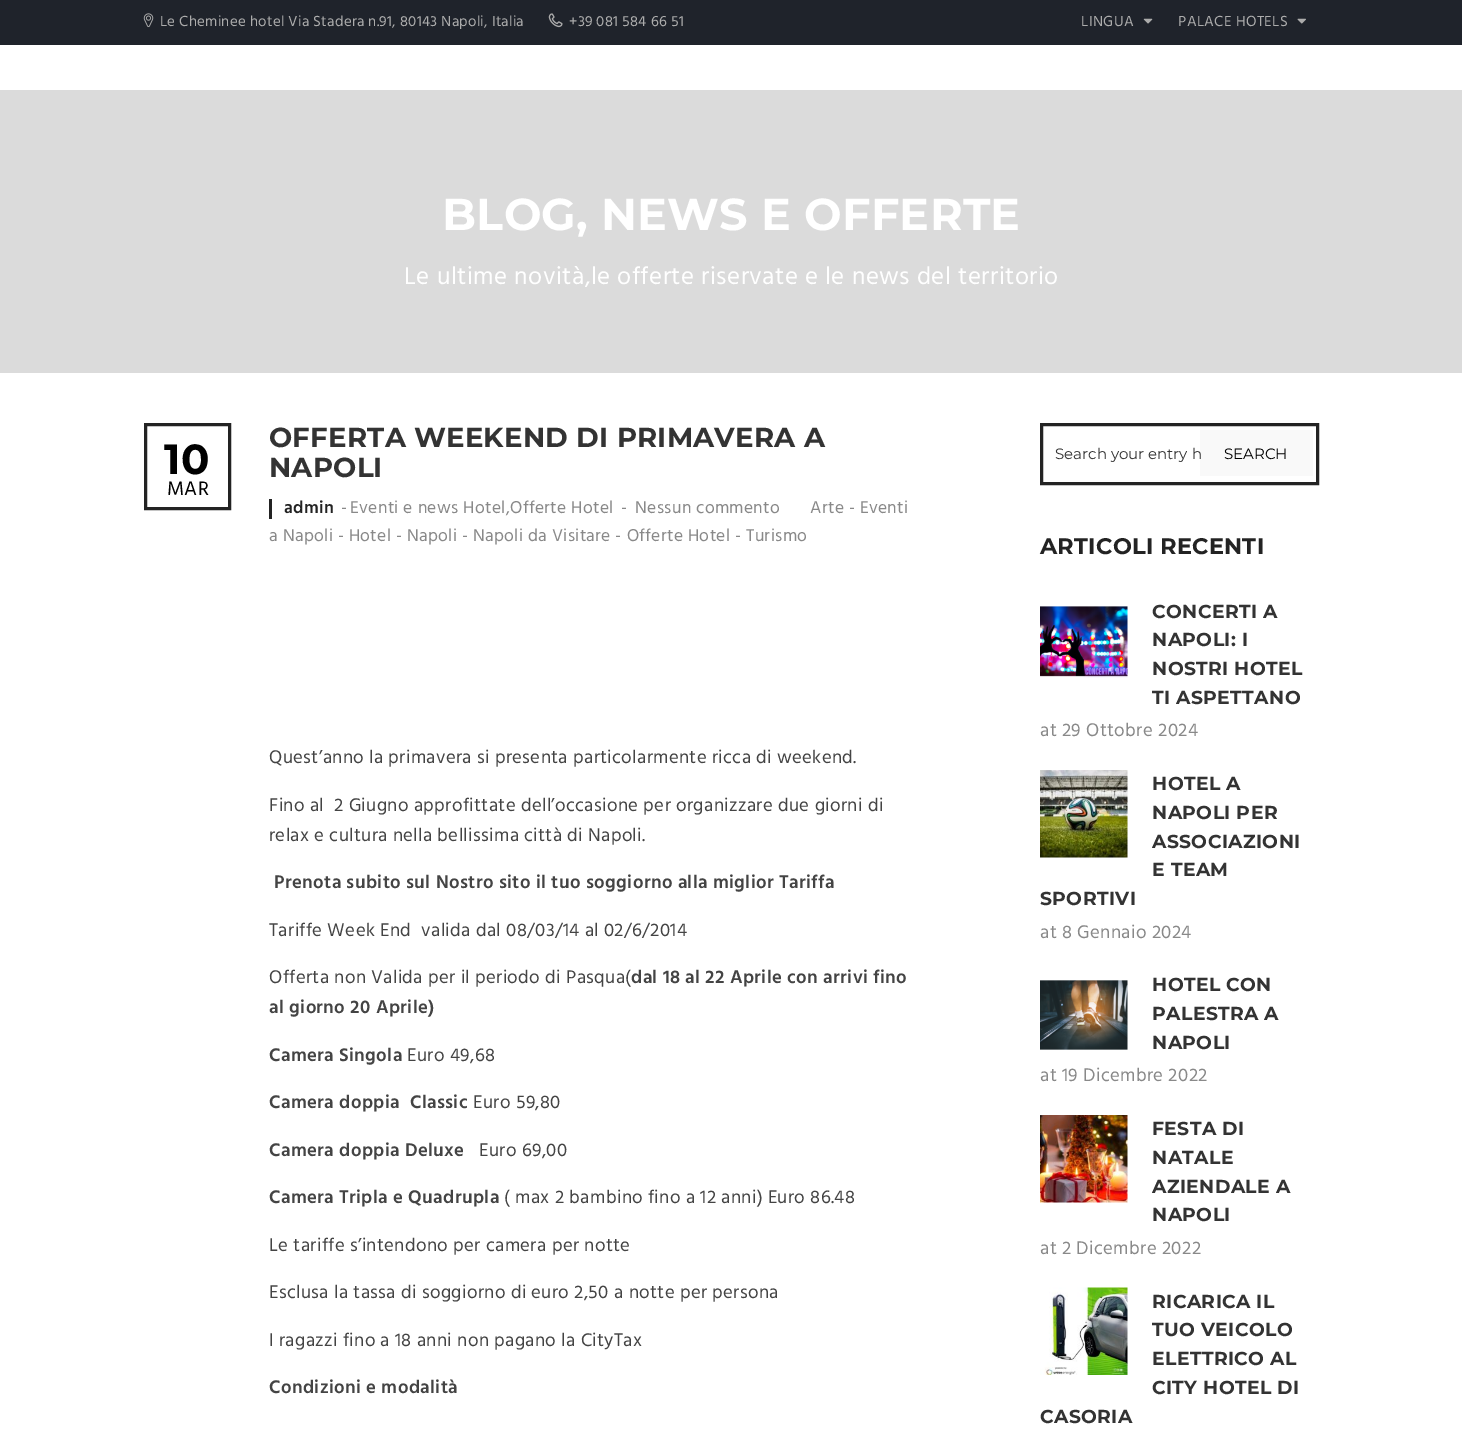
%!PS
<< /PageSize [1462 1435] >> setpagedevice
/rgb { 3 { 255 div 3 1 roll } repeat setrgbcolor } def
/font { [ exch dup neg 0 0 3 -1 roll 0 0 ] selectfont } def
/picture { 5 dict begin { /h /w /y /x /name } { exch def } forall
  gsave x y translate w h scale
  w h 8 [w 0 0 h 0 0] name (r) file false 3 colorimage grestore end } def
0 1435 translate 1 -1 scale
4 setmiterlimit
255 255 255 rgb
0 0 1462 1435 rectfill
31 35 43 rgb
0 0 1462 45 rectfill
(img/1.rgb) 143 13 11 15 picture
(img/2.rgb) 548 13 15 15 picture
(img/3.rgb) 1143 18 10 6 picture
(img/4.rgb) 1297 18 9 6 picture
219 219 219 rgb
0 90 1462 283 rectfill
35 35 35 rgb
3 setlinewidth
145.5 424.5 84 84 rectstroke
269 499 3 20 rectfill
1041.5 424.5 276 59 rectstroke
249 249 249 rgb
1200 430 113 46 rectfill
(img/5.rgb) 1040 606 88 72 picture
(img/6.rgb) 1040 770 88 88 picture
(img/7.rgb) 1040 980 88 70 picture
(img/8.rgb) 1040 1115 88 88 picture
(img/9.rgb) 1040 1287 88 88 picture
/Hind-Regular 15 font
172 172 172 rgb
160 26 moveto 0.25 0 (Le Cheminee hotel Via Stadera n.91, 80143 Napoli, Italia) ashow
569 26 moveto 0.25 0 (+39 081 584 66 51) ashow
1081 26 moveto 0.38 0 (LINGUA) ashow
1178 26 moveto 0.38 0 (PALACE HOTELS) ashow
/Montserrat-Bold 44.6 font
255 255 255 rgb
442 230 moveto 0.25 0 (BLOG, NEWS E OFFERTE) ashow
/Hind-Regular 25 font
404 284 moveto 0.5 0 (Le ultime novità,le offerte riservate e le news del territorio) ashow
/Montserrat-Bold 42 font
0 0 0 rgb
164 474 moveto 0.25 0 (10) ashow
/Hind-Regular 20 font
167 495 moveto 0.25 0 (MAR) ashow
/Montserrat-Bold 27.5 font
51 51 51 rgb
269 447 moveto 0.25 0 (OFFERTA WEEKEND DI PRIMAVERA A) ashow
269 477 moveto 0.25 0 (NAPOLI) ashow
/Hind-SemiBold 17.5 font
35 35 35 rgb
284 513 moveto 0.35 0 (admin) ashow
/Hind-Regular 17.5 font
137 137 137 rgb
341 513 moveto 0.35 0 (-) ashow
350 513 moveto 0.35 0 (Eventi e news Hotel,Offerte Hotel) ashow
621 513 moveto 0.35 0 (-) ashow
635 513 moveto 0.35 0 (Nessun commento) ashow
810 513 moveto 0.35 0 (Arte - Eventi) ashow
269 541 moveto 0.35 0 (a Napoli - Hotel - Napoli - Napoli da Visitare - Offerte Hotel - Turismo) ashow
/Hind-Regular 18.75 font
68 68 68 rgb
269 763 moveto 0.38 0 (Quest’anno la primavera si presenta particolarmente ricca di weekend.) ashow
269 811 moveto 0.38 0 (Fino al  2 Giugno approfittate dell’occasione per organizzare due giorni di) ashow
269 841 moveto 0.38 0 (relax e cultura nella bellissima città di Napoli.) ashow
/Hind-SemiBold 18.75 font
274 888 moveto 0.38 0 (Prenota subito sul Nostro sito il tuo soggiorno alla miglior Tariffa) ashow
/Hind-Regular 18.75 font
269 936 moveto 0.38 0 (Tariffe Week End  valida dal 08/03/14 al 02/6/2014) ashow
269 983 moveto 0.38 0 (Offerta non Valida per il periodo di Pasqua\() ashow
/Hind-SemiBold 18.75 font
631 983 moveto 0.38 0 (dal 18 al 22 Aprile con arrivi fino) ashow
269 1013 moveto 0.38 0 (al giorno 20 Aprile\)) ashow
269 1061 moveto 0.38 0 (Camera Singola) ashow
/Hind-Regular 18.75 font
407 1061 moveto 0.38 0 (Euro 49,68) ashow
/Hind-SemiBold 18.75 font
269 1108 moveto 0.38 0 (Camera doppia  Classic) ashow
/Hind-Regular 18.75 font
473 1108 moveto 0.38 0 (Euro 59,80) ashow
/Hind-SemiBold 18.75 font
269 1156 moveto 0.38 0 (Camera doppia Deluxe) ashow
/Hind-Regular 18.75 font
479 1156 moveto 0.38 0 (Euro 69,00) ashow
/Hind-SemiBold 18.75 font
269 1203 moveto 0.38 0 (Camera Tripla e Quadrupla) ashow
/Hind-Regular 18.75 font
504 1203 moveto 0.38 0 (\( max 2 bambino fino a 12 anni\) Euro 86.48) ashow
269 1251 moveto 0.38 0 (Le tariffe s’intendono per camera per notte) ashow
269 1298 moveto 0.38 0 (Esclusa la tassa di soggiorno di euro 2,50 a notte per persona) ashow
269 1346 moveto 0.38 0 (I ragazzi fino a 18 anni non pagano la CityTax) ashow
/Hind-SemiBold 18.75 font
269 1393 moveto 0.38 0 (Condizioni e modalità) ashow
/Montserrat-Regular 15 font
51 51 51 rgb
1055 459 moveto (Search your entry h) show
0 0 0 rgb
1224 459 moveto (SEARCH) show
/Montserrat-Bold 22.5 font
35 35 35 rgb
1040 554 moveto 0.25 0 (ARTICOLI RECENTI) ashow
/Montserrat-Bold 18.75 font
51 51 51 rgb
1152 618 moveto 0.38 0 (CONCERTI A) ashow
1152 646 moveto 0.38 0 (NAPOLI: I) ashow
1152 675 moveto 0.38 0 (NOSTRI HOTEL) ashow
1152 704 moveto 0.38 0 (TI ASPETTANO) ashow
/Hind-Regular 18.75 font
137 137 137 rgb
1040 736 moveto 0.38 0 (at 29 Ottobre 2024) ashow
/Montserrat-Bold 18.75 font
51 51 51 rgb
1152 790 moveto 0.38 0 (HOTEL A) ashow
1152 819 moveto 0.38 0 (NAPOLI PER) ashow
1152 848 moveto 0.38 0 (ASSOCIAZIONI) ashow
1152 876 moveto 0.38 0 (E TEAM) ashow
1040 905 moveto 0.38 0 (SPORTIVI) ashow
/Hind-Regular 18.75 font
137 137 137 rgb
1040 938 moveto 0.38 0 (at 8 Gennaio 2024) ashow
/Montserrat-Bold 18.75 font
51 51 51 rgb
1152 991 moveto 0.38 0 (HOTEL CON) ashow
1152 1020 moveto 0.38 0 (PALESTRA A) ashow
1152 1049 moveto 0.38 0 (NAPOLI) ashow
/Hind-Regular 18.75 font
137 137 137 rgb
1040 1081 moveto 0.38 0 (at 19 Dicembre 2022) ashow
/Montserrat-Bold 18.75 font
51 51 51 rgb
1152 1135 moveto 0.38 0 (FESTA DI) ashow
1152 1164 moveto 0.38 0 (NATALE) ashow
1152 1193 moveto 0.38 0 (AZIENDALE A) ashow
1152 1221 moveto 0.38 0 (NAPOLI) ashow
/Hind-Regular 18.75 font
137 137 137 rgb
1040 1254 moveto 0.38 0 (at 2 Dicembre 2022) ashow
/Montserrat-Bold 18.75 font
51 51 51 rgb
1152 1308 moveto 0.38 0 (RICARICA IL) ashow
1152 1336 moveto 0.38 0 (TUO VEICOLO) ashow
1152 1365 moveto 0.38 0 (ELETTRICO AL) ashow
1152 1394 moveto 0.38 0 (CITY HOTEL DI) ashow
1040 1423 moveto 0.38 0 (CASORIA) ashow
showpage
